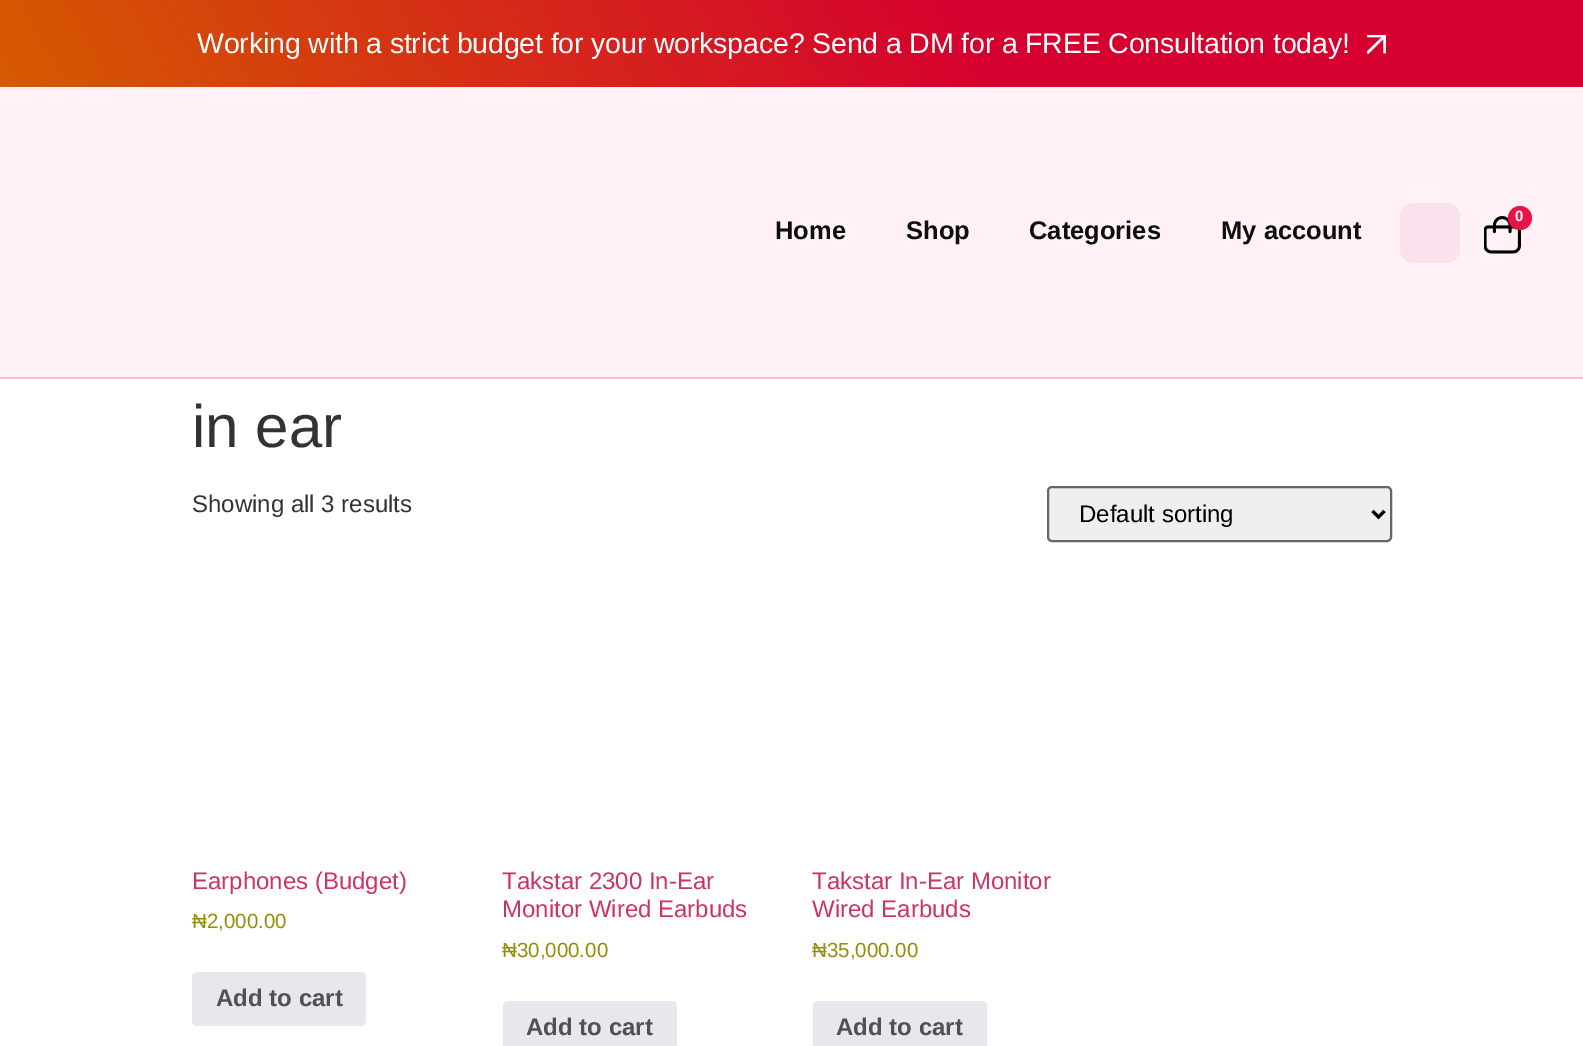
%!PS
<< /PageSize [1583 1046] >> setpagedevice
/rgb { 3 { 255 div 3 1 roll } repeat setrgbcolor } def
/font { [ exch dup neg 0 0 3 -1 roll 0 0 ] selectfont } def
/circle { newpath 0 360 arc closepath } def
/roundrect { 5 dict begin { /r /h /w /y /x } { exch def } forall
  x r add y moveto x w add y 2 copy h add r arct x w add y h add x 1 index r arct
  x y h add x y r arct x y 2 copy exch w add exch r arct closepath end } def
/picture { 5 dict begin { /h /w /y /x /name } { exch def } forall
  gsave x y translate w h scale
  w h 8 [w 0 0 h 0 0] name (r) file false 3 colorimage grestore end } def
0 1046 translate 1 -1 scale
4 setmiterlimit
255 255 255 rgb
0 0 1583 1046 rectfill
gsave 0 0 moveto 1583 0 lineto 1583 87 lineto 0 87 lineto closepath clip newpath
<< /ShadingType 2 /ColorSpace /DeviceRGB /Coords [1416 -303 168 390] /Extend [true true] /Function << /FunctionType 3 /Domain [0 1] /Functions [<< /FunctionType 2 /Domain [0 1] /C0 [0.835 0 0.184] /C1 [0.835 0 0.184] /N 1 >> << /FunctionType 2 /Domain [0 1] /C0 [0.835 0 0.184] /C1 [0.835 0.357 0] /N 1 >>] /Bounds [0.38] /Encode [0 1 0 1] >> >> shfill grestore
(img/1.rgb) 1367 35 19 19 picture
255 241 245 rgb
0 87 1583 290 rectfill
255 190 206 rgb
0 377 1583 2 rectfill
250 225 238 rgb
1400 203 60 60 14 roundrect fill
(img/2.rgb) 1484 216 37 38 picture
232 20 71 rgb
1520 218 12 circle fill
239 239 239 rgb
1048 487 343 54 4 roundrect gsave fill grestore
102 102 102 rgb
2 setlinewidth
stroke
0 0 0 rgb
3 setlinewidth
1372.5 511 moveto 1378.5 517 lineto 1384.5 511 lineto stroke
233 230 237 rgb
192 972 174 54 5 roundrect fill
503 1001 174 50 5 roundrect fill
813 1001 174 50 5 roundrect fill
/LiberationSans-Regular 28.5 font
255 255 255 rgb
197 53 moveto -0.15 0 (Working with a strict budget for your workspace? Send a DM for a FREE Consultation today!) ashow
/LiberationSans-Bold 15 font
1515 221 moveto (0) show
/LiberationSans-Bold 25.5 font
14 14 14 rgb
[
  [(Home) 775 239]
  [(Shop) 906 239]
  [(Categories) 1029 239]
  [(My account) 1221 239]
] { aload pop moveto show } forall
/LiberationSans-Regular 60 font
51 51 51 rgb
192 447 moveto (in ear) show
/LiberationSans-Regular 24 font
192 512 moveto (Showing all 3 results) show
0 0 0 rgb
1079 522 moveto (Default sorting) show
204 51 102 rgb
192 889 moveto (Earphones \(Budget\)) show
/LiberationSans-Regular 20.5 font
149 142 9 rgb
192 928 moveto (₦2,000.00) show
/LiberationSans-Bold 24 font
81 81 81 rgb
216 1006 moveto (Add to cart) show
/LiberationSans-Regular 24 font
204 51 102 rgb
502 889 moveto (Takstar 2300 In-Ear) show
502 917 moveto (Monitor Wired Earbuds) show
/LiberationSans-Regular 20.5 font
149 142 9 rgb
502 957 moveto (₦30,000.00) show
/LiberationSans-Bold 24 font
81 81 81 rgb
526 1035 moveto (Add to cart) show
/LiberationSans-Regular 24 font
204 51 102 rgb
812 889 moveto (Takstar In-Ear Monitor) show
812 917 moveto (Wired Earbuds) show
/LiberationSans-Regular 20.5 font
149 142 9 rgb
812 957 moveto (₦35,000.00) show
/LiberationSans-Bold 24 font
81 81 81 rgb
836 1035 moveto (Add to cart) show
showpage
